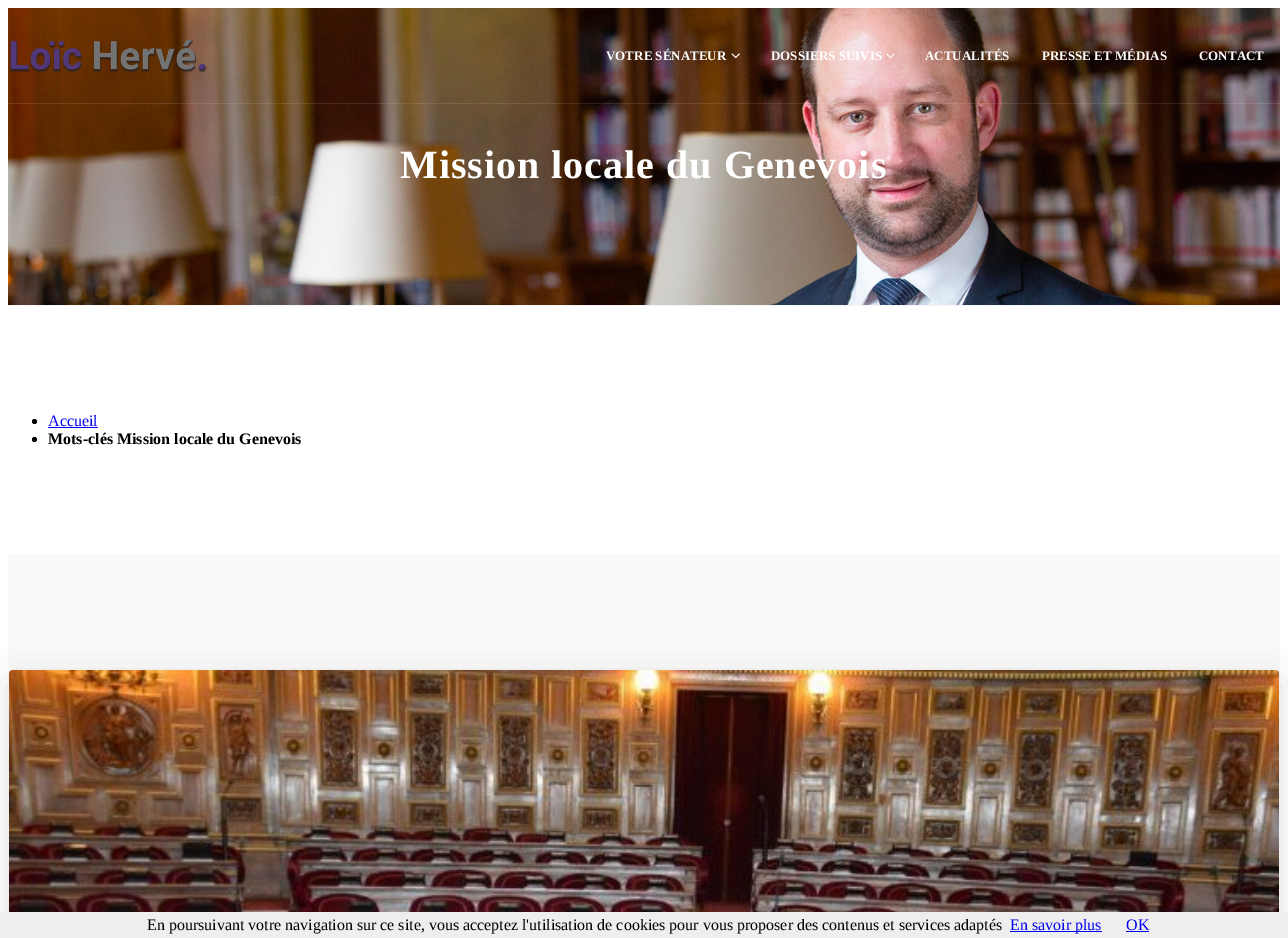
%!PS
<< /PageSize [1288 938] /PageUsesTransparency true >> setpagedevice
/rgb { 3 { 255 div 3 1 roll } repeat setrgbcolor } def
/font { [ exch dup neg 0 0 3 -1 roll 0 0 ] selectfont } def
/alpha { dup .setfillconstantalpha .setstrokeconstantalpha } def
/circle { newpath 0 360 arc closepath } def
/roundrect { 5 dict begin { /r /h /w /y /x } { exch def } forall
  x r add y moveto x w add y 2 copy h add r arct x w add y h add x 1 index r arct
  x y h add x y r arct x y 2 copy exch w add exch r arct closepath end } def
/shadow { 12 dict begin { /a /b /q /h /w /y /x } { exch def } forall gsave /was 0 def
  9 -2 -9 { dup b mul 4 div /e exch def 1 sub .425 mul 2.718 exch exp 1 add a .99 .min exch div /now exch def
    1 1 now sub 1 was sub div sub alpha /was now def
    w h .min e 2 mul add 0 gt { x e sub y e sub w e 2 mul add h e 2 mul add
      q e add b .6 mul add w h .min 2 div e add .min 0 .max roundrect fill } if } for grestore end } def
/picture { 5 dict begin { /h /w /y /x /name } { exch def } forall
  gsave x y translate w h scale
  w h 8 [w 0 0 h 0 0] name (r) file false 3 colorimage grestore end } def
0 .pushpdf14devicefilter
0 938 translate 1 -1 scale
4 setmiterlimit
255 255 255 rgb
0 0 1288 938 rectfill
(img/2.rgb) 8 8 1272 297 picture
0.1 alpha
8 103 1272 1 rectfill
1 alpha
(img/1.rgb) 10 40 197 33 picture
739 53.5 moveto 740 54 lineto 735.5 58 lineto 735 57.5 lineto closepath fill
732 53.5 moveto 736.5 57.5 lineto 735.5 58 lineto 731.5 54 lineto closepath fill
894 53.5 moveto 894.5 54 lineto 890.5 58 lineto 890 57.5 lineto closepath fill
887 53.5 moveto 891 57.5 lineto 890.5 58 lineto 886 54 lineto closepath fill
245 245 245 rgb
8 305 1272 1 rectfill
0 0 0 rgb
34.5 421.5 2.5 circle fill
0 0 238 rgb
48 427 50 1 rectfill
0 0 0 rgb
34.5 439.5 2.5 circle fill
249 249 249 rgb
8 554 1272 120 rectfill
50 50 50 rgb
8 679 1272 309 5 15 0.16 shadow
238 238 238 rgb
8.5 669.5 1271 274 4.5 roundrect stroke
(img/3.rgb) 9 670 1270 242 picture
[
  [0 912 1288 26 238 238 238]
  [1010 931 92 1 0 0 238]
  [1126 931 23 1 0 0 238]
] { aload pop rgb rectfill } forall
/LiberationSerif-Bold 13 font
255 255 255 rgb
[
  [(VOTRE SÉNATEUR) 606 60]
  [(DOSSIERS SUIVIS) 771 60]
  [(ACTUALITÉS) 925 60]
  [(PRESSE ET MÉDIAS) 1042 60]
  [(CONTACT) 1199 60]
] { aload pop moveto show } forall
/LiberationSerif-Bold 40 font
400 178 moveto 1 0 (Mission locale du Genevois) ashow
/LiberationSerif-Regular 16 font
0 0 238 rgb
48 426 moveto (Accueil) show
/LiberationSerif-Bold 16 font
0 0 0 rgb
48 444 moveto (Mots-clés Mission locale du Genevois) show
/LiberationSerif-Regular 16 font
147 930 moveto (En poursuivant votre navigation sur ce site, vous acceptez l'utilisation de cookies pour vous proposer des contenus et services adaptés) show
0 0 238 rgb
1010 930 moveto (En savoir plus) show
1126 930 moveto (OK) show
.poppdf14devicefilter showpage
